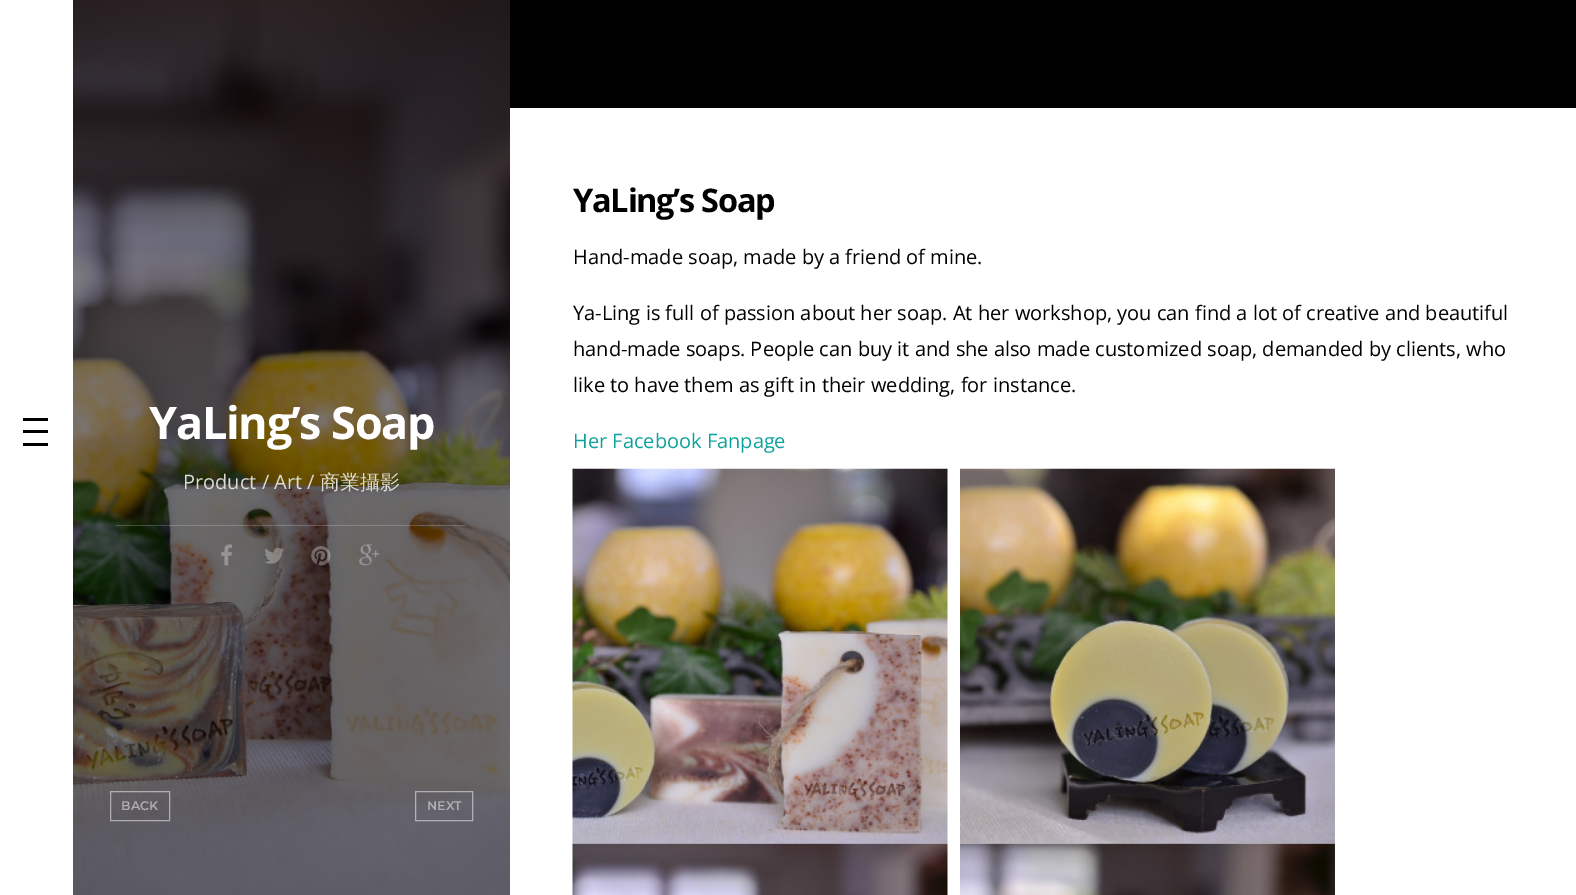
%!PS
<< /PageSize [1576 895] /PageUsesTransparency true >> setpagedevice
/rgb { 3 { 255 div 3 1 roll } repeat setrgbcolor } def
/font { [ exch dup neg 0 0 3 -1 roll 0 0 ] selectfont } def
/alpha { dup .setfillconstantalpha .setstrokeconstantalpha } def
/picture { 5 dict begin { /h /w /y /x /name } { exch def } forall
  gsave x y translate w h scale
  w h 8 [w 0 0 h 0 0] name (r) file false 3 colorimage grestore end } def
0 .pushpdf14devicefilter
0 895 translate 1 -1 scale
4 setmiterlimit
0 0 0 rgb
0 0 1576 895 rectfill
[
  [0 0 73 895 255 255 255]
  [23 430 25 3 0 0 0]
  [23 418 25 3 0 0 0]
  [23 443 25 3 0 0 0]
] { aload pop rgb rectfill } forall
(img/1.rgb) 73 0 437 895 picture
255 255 255 rgb
510 108 1066 787 rectfill
(img/2.rgb) 572 468 376 376 picture
(img/3.rgb) 960 468 375 376 picture
(img/4.rgb) 572 843 376 52 picture
(img/5.rgb) 960 843 375 52 picture
0.5 alpha
0 0 0 rgb
73 0 437 895 rectfill
0.2 alpha
255 255 255 rgb
116 525 350 1 rectfill
1 alpha
(img/6.rgb) 221 544 11 22 picture
(img/7.rgb) 264 547 20 17 picture
(img/8.rgb) 311 546 20 20 picture
(img/9.rgb) 359 544 20 22 picture
0.5 alpha
110.5 791.5 59 29 rectstroke
415.5 791.5 57 29 rectstroke
/OpenSans-Bold 32.5 font
1 alpha
0 0 0 rgb
573 212 moveto -1.25 0 (YaLing’s Soap) ashow
/OpenSans-Regular 20 font
[
  [(Hand-made soap, made by a friend of mine.) 573 264]
  [(Ya-Ling is full of passion about her soap. At her workshop, you can find a lot of creative and beautiful) 573 320]
  [(hand-made soaps. People can buy it and she also made customized soap, demanded by clients, who) 573 356]
  [(like to have them as gift in their wedding, for instance.) 573 392]
] { aload pop moveto show } forall
13 162 157 rgb
573 448 moveto (Her Facebook Fanpage) show
/OpenSans-Bold 45 font
255 255 255 rgb
149 439 moveto -1.25 0 (YaLing’s Soap) ashow
/OpenSans-Regular 20 font
219 218 212 rgb
183 489 moveto (Product / Art /) show
/WenQuanYiZenHei-Medium 20 font
320 489 moveto (商業攝影) show
/Montserrat-SemiBold 12.5 font
175 173 175 rgb
121 810 moveto (BACK) show
177 177 181 rgb
427 810 moveto (NEXT) show
.poppdf14devicefilter showpage
